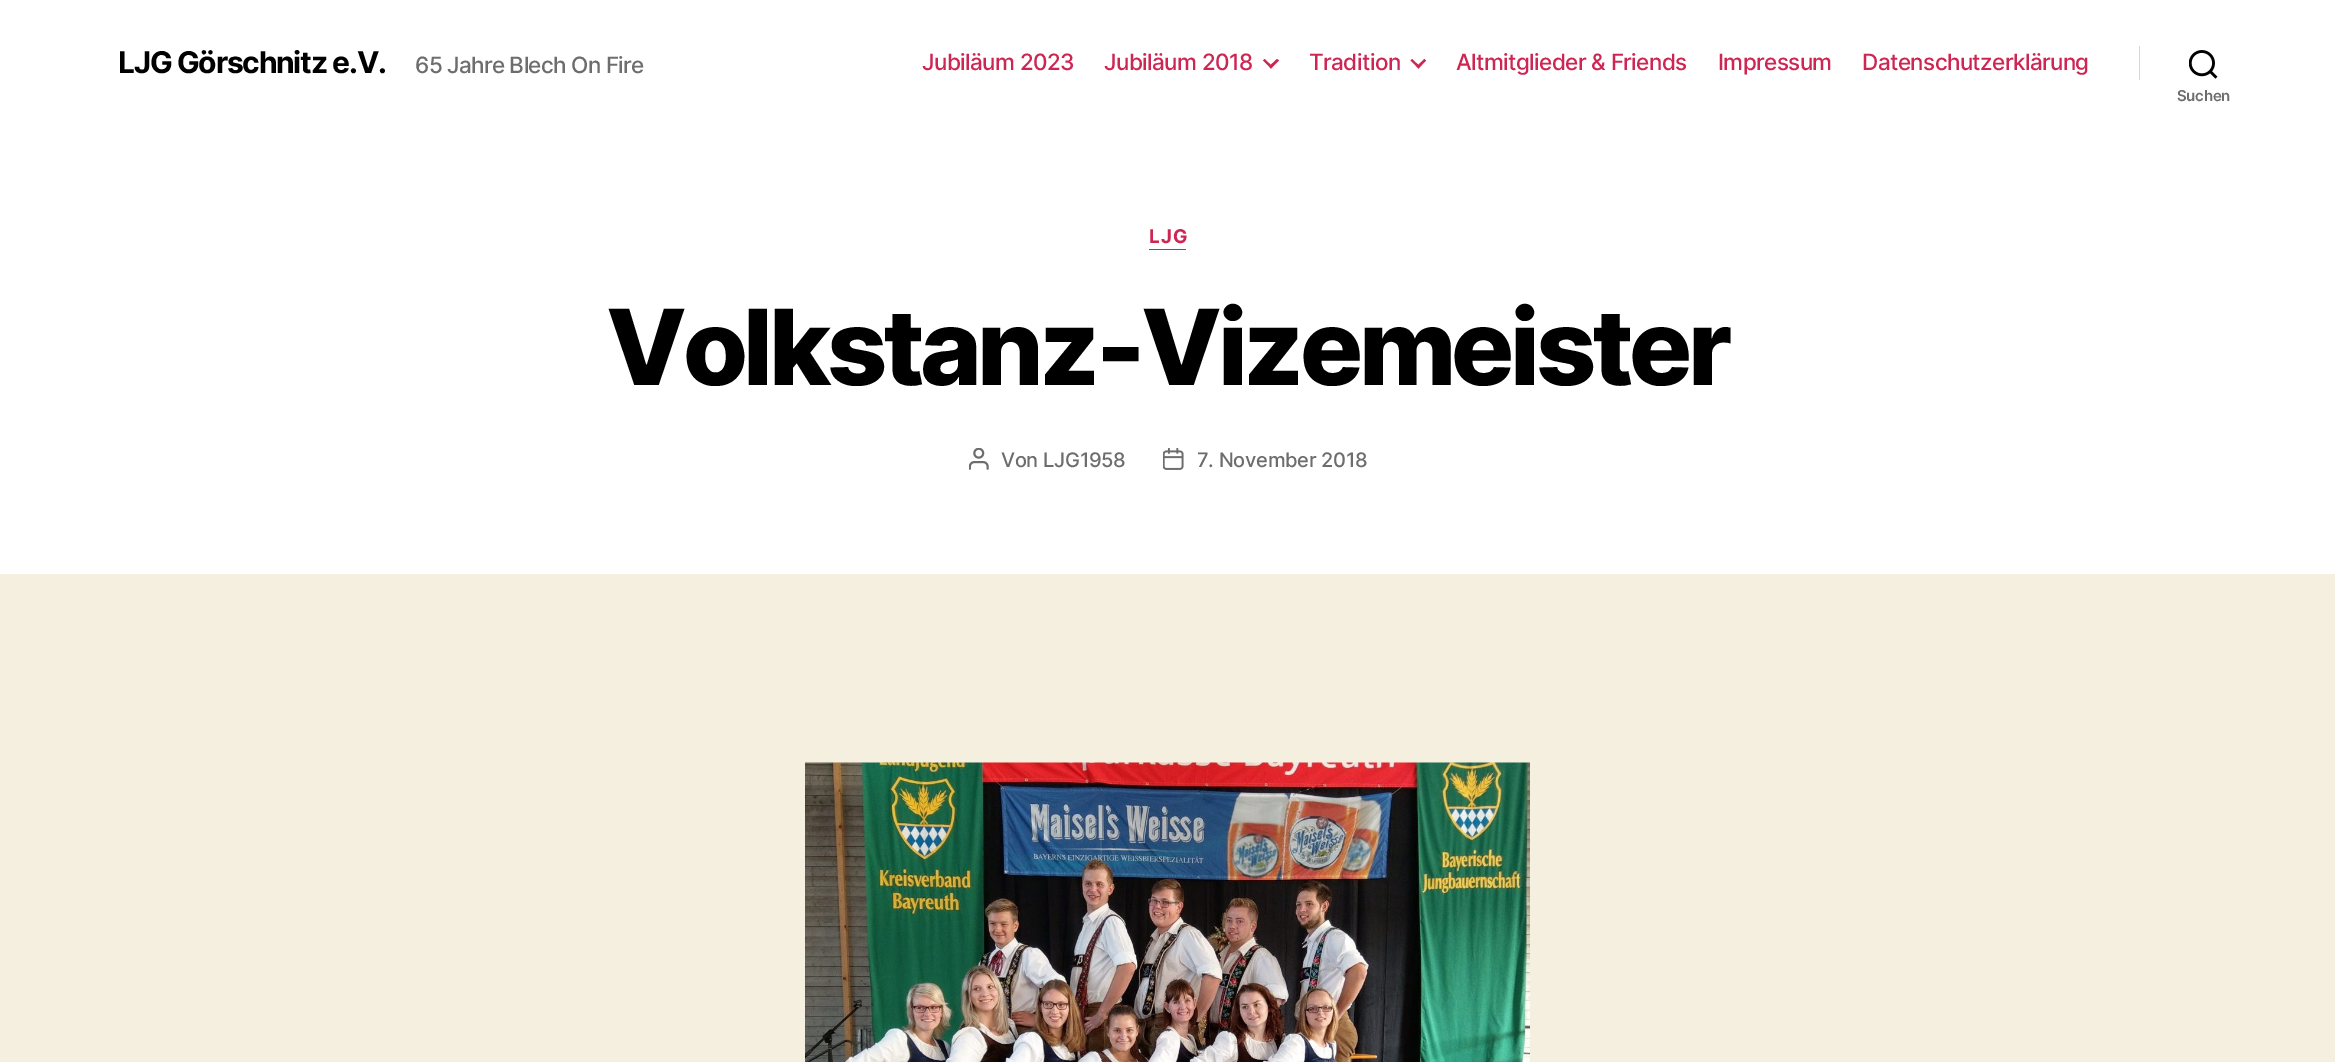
%!PS
<< /PageSize [2335 1062] >> setpagedevice
/rgb { 3 { 255 div 3 1 roll } repeat setrgbcolor } def
/font { [ exch dup neg 0 0 3 -1 roll 0 0 ] selectfont } def
/picture { 5 dict begin { /h /w /y /x /name } { exch def } forall
  gsave x y translate w h scale
  w h 8 [w 0 0 h 0 0] name (r) file false 3 colorimage grestore end } def
0 1062 translate 1 -1 scale
4 setmiterlimit
245 239 224 rgb
0 0 2335 1062 rectfill
255 255 255 rgb
0 0 2335 574 rectfill
205 38 83 rgb
1263 60.5 moveto 1264.5 59 lineto 1272.5 66.5 lineto 1271 68.5 lineto closepath fill
1269 66.5 moveto 1277 59 lineto 1279 60.5 lineto 1271 68.5 lineto closepath fill
1410.5 60.5 moveto 1412 59 lineto 1420 66.5 lineto 1418.5 68.5 lineto closepath fill
1416.5 66.5 moveto 1424.5 59 lineto 1426 60.5 lineto 1418.5 68.5 lineto closepath fill
220 215 202 rgb
2139 46 1 34 rectfill
(img/1.rgb) 2189 50 29 29 picture
205 38 83 rgb
1149 249 37 1 rectfill
(img/2.rgb) 969 448 20 22 picture
(img/3.rgb) 1163 448 21 22 picture
(img/4.rgb) 805 762 725 300 picture
/Inter-Bold 30 font
0 0 0 rgb
118 73 moveto -1.25 0 (LJG Görschnitz e.V.) ashow
/Inter-Medium 22.5 font
109 109 109 rgb
415 73 moveto -0.7 0 (65 Jahre Blech On Fire) ashow
205 38 83 rgb
922 70 moveto -0.6 0 (Jubiläum 2023) ashow
1104 70 moveto -0.6 0 (Jubiläum 2018) ashow
1309 70 moveto -0.6 0 (Tradition) ashow
1456 70 moveto -0.6 0 (Altmitglieder & Friends) ashow
1718 70 moveto -0.6 0 (Impressum) ashow
1862 70 moveto -0.6 0 (Datenschutzerklärung) ashow
/Inter-SemiBold 15 font
109 109 109 rgb
2177 101 moveto -0.3 0 (Suchen) ashow
/Inter-Bold 19 font
205 38 83 rgb
1149 243 moveto 1 0 (LJG) ashow
/Inter-ExtraBold 105 font
0 0 0 rgb
606 385 moveto -4.4 0 (Volkstanz-Vizemeister) ashow
/Inter-Medium 20 font
109 109 109 rgb
1001 467 moveto -0.3 0 (Von LJG1958) ashow
1197 467 moveto -0.3 0 (7. November 2018) ashow
showpage
